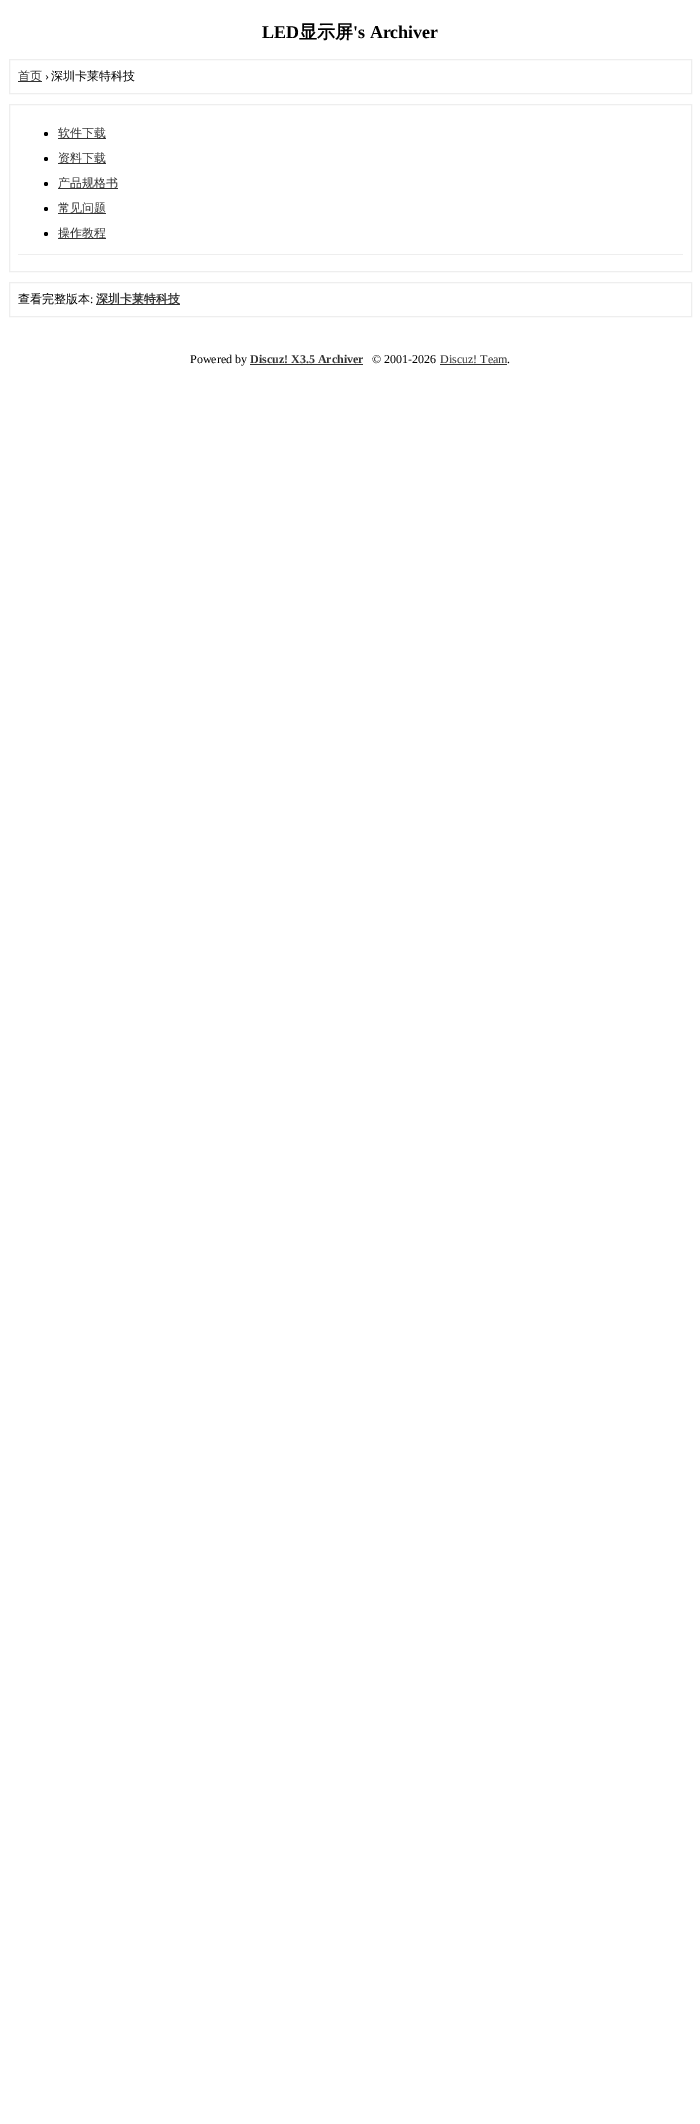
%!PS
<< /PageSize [700 2124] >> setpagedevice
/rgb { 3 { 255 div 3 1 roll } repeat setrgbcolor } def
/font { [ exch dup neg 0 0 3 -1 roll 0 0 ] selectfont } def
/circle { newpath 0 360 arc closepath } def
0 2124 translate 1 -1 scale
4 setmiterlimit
255 255 255 rgb
0 0 700 2124 rectfill
238 238 238 rgb
9.5 59.5 682 34 rectstroke
51 51 51 rgb
18 81 24 1 rectfill
238 238 238 rgb
9.5 104.5 682 167 rectstroke
0 0 0 rgb
46 134 2 circle fill
51 51 51 rgb
58 138 48 1 rectfill
0 0 0 rgb
46 159 2 circle fill
51 51 51 rgb
58 163 48 1 rectfill
0 0 0 rgb
46 184 2 circle fill
51 51 51 rgb
58 188 60 1 rectfill
0 0 0 rgb
46 209 2 circle fill
51 51 51 rgb
58 213 48 1 rectfill
0 0 0 rgb
46 234 2 circle fill
51 51 51 rgb
58 238 48 1 rectfill
238 238 238 rgb
18 254 665 1 rectfill
9.5 282.5 682 34 rectstroke
[
  [96 304 84 1 51 51 51]
  [250 364 113 1 51 51 51]
  [440 364 67 1 51 51 51]
] { aload pop rgb rectfill } forall
/LiberationSerif-Bold 18 font
0 0 0 rgb
262 38 moveto (LED) show
/WenQuanYiZenHei-Bold 18 font
299 38 moveto (显示屏) show
/LiberationSerif-Bold 18 font
353 38 moveto ('s Archiver) show
/WenQuanYiZenHei-Medium 12 font
51 51 51 rgb
18 80 moveto (首页) show
/LiberationSerif-Regular 12 font
0 0 0 rgb
45 80 moveto (›) show
/WenQuanYiZenHei-Medium 12 font
51 80 moveto (深圳卡莱特科技) show
51 51 51 rgb
[
  [(软件下载) 58 137]
  [(资料下载) 58 162]
  [(产品规格书) 58 187]
  [(常见问题) 58 212]
  [(操作教程) 58 237]
] { aload pop moveto show } forall
0 0 0 rgb
18 303 moveto (查看完整版本) show
/LiberationSerif-Regular 12 font
90 303 moveto (:) show
/WenQuanYiZenHei-Bold 12 font
51 51 51 rgb
96 303 moveto (深圳卡莱特科技) show
/LiberationSerif-Regular 12 font
0 0 0 rgb
190 363 moveto (Powered by) show
/LiberationSerif-Bold 12 font
51 51 51 rgb
250 363 moveto (Discuz! X3.5 Archiver) show
/LiberationSerif-Regular 12 font
0 0 0 rgb
372 363 moveto (© 2001-2026) show
51 51 51 rgb
440 363 moveto (Discuz! Team) show
0 0 0 rgb
507 363 moveto (.) show
showpage
